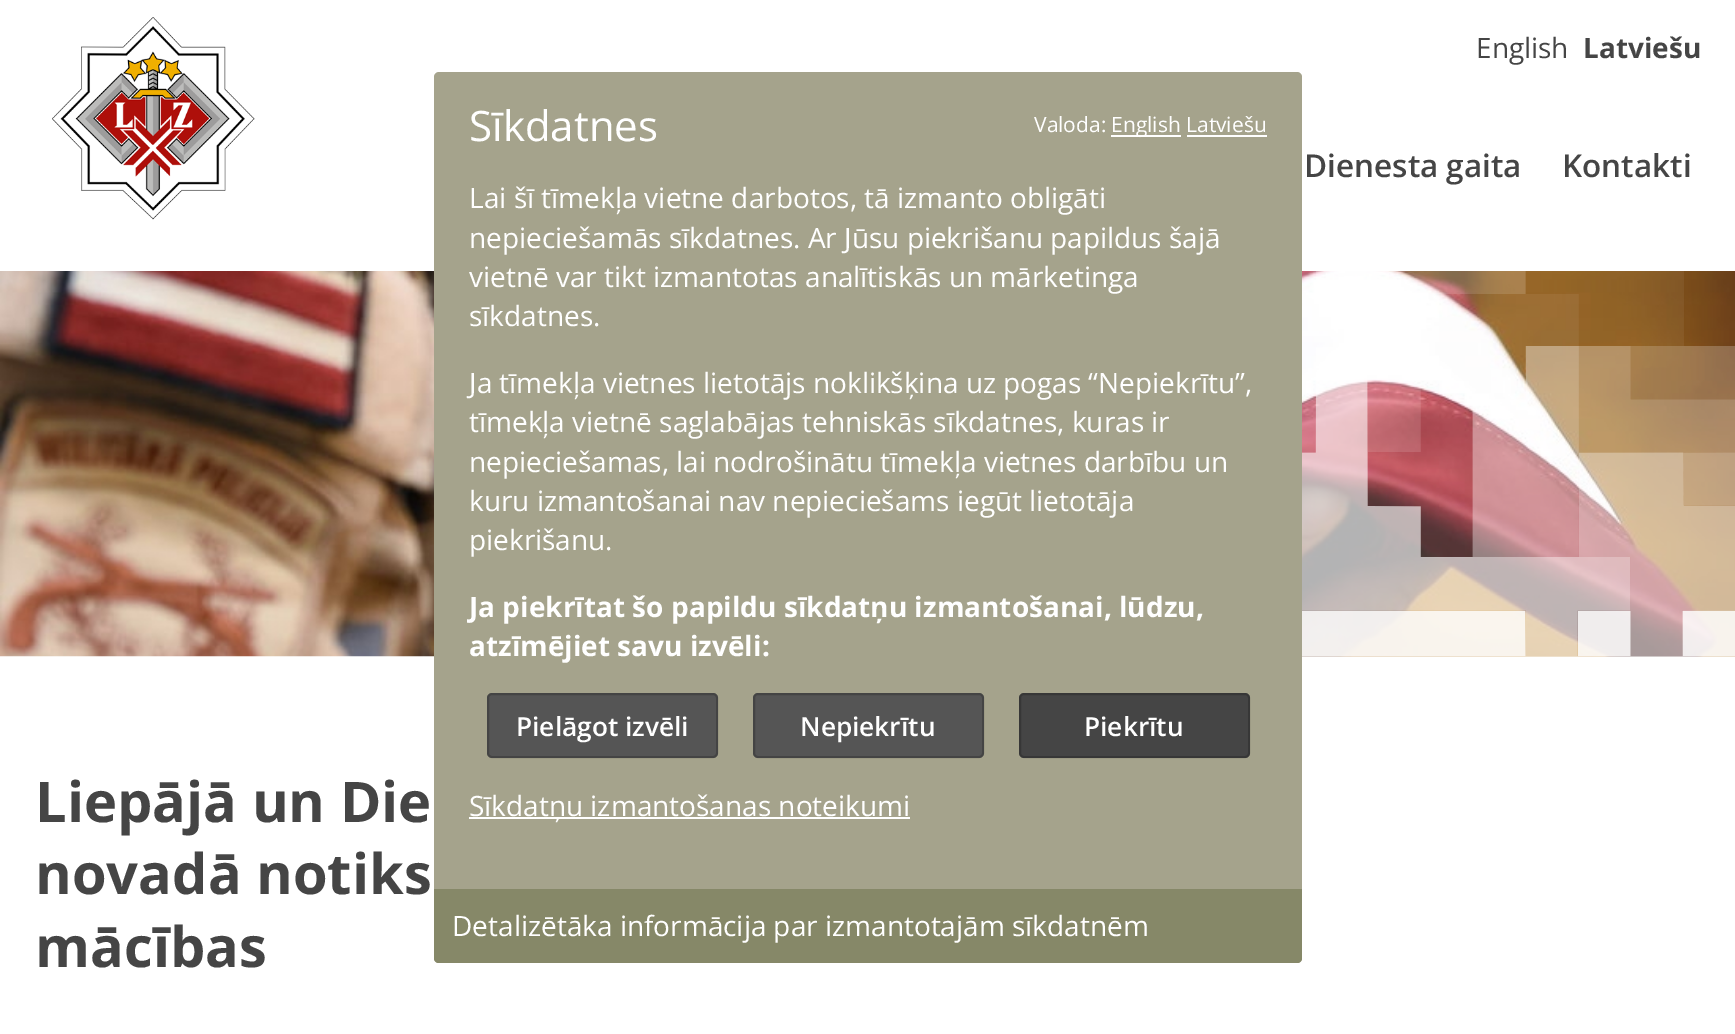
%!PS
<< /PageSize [1735 1034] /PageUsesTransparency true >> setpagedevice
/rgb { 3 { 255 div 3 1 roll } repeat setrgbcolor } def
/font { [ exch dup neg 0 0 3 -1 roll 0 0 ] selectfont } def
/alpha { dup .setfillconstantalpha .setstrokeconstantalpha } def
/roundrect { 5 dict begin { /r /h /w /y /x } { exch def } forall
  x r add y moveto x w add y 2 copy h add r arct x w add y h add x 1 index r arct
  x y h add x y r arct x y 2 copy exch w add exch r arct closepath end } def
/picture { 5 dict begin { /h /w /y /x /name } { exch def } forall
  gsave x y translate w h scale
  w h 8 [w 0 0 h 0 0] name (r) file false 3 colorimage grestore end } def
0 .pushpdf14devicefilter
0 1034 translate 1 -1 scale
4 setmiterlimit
255 255 255 rgb
0 0 1735 1034 rectfill
(img/1.rgb) 0 271 1735 386 picture
(img/2.rgb) 52 17 203 203 picture
(img/3.rgb) 1302 271 433 386 picture
165 163 140 rgb
434 72 868 891 5 roundrect fill
255 255 255 rgb
1111 135 70 2 rectfill
1187 135 80 2 rectfill
85 85 85 rgb
487 693 231 65 5 roundrect fill
0.2 alpha
0 0 0 rgb
2 setlinewidth
488 694 229 63 4 roundrect stroke
1 alpha
85 85 85 rgb
753 693 231 65 5 roundrect fill
0.2 alpha
0 0 0 rgb
754 694 229 63 4 roundrect stroke
1 alpha
69 69 69 rgb
1019 693 231 65 5 roundrect fill
0.2 alpha
0 0 0 rgb
1020 694 229 63 4 roundrect stroke
1 alpha
255 255 255 rgb
469 817 441 2 rectfill
134 136 104 rgb
434 889 moveto 1302 889 lineto 1302 958 lineto 1302 961 1300 963 1297 963 curveto 439 963 lineto 436 963 434 961 434 958 curveto closepath fill
/OpenSans-Regular 28 font
69 69 69 rgb
1476 58 moveto (English) show
/OpenSans-Bold 28 font
1583 58 moveto (Latviešu) show
/OpenSans-SemiBold 31.5 font
1304 177 moveto (Dienesta gaita) show
1562 177 moveto (Kontakti) show
/OpenSans-Bold 56 font
[
  [(Liepājā un Die) 35 822]
  [(novadā notiks) 35 894]
  [(mācības) 35 967]
] { aload pop moveto show } forall
/OpenSans-Regular 42 font
255 255 255 rgb
469 141 moveto (Sīkdatnes) show
/OpenSans-Regular 21 font
1034 132 moveto (Valoda:) show
1111 132 moveto (English Latviešu) show
/OpenSans-Regular 28 font
[
  [(Lai šī tīmekļa vietne darbotos, tā izmanto obligāti) 469 208]
  [(nepieciešamās sīkdatnes. Ar Jūsu piekrišanu papildus šajā) 469 248]
  [(vietnē var tikt izmantotas analītiskās un mārketinga) 469 287]
  [(sīkdatnes.) 469 326]
  [(Ja tīmekļa vietnes lietotājs noklikšķina uz pogas “Nepiekrītu”,) 469 393]
  [(tīmekļa vietnē saglabājas tehniskās sīkdatnes, kuras ir) 469 432]
  [(nepieciešamas, lai nodrošinātu tīmekļa vietnes darbību un) 469 472]
  [(kuru izmantošanai nav nepieciešams iegūt lietotāja) 469 511]
  [(piekrišanu.) 469 550]
] { aload pop moveto show } forall
/OpenSans-Bold 28 font
469 617 moveto (Ja piekrītat šo papildu sīkdatņu izmantošanai, lūdzu,) show
469 656 moveto (atzīmējiet savu izvēli:) show
/OpenSans-SemiBold 26.25 font
[
  [(Pielāgot izvēli) 516 736]
  [(Nepiekrītu) 800 736]
  [(Piekrītu) 1084 736]
] { aload pop moveto show } forall
/OpenSans-Regular 28 font
469 816 moveto (Sīkdatņu izmantošanas noteikumi) show
452 936 moveto (Detalizētāka informācija par izmantotajām sīkdatnēm) show
.poppdf14devicefilter showpage
